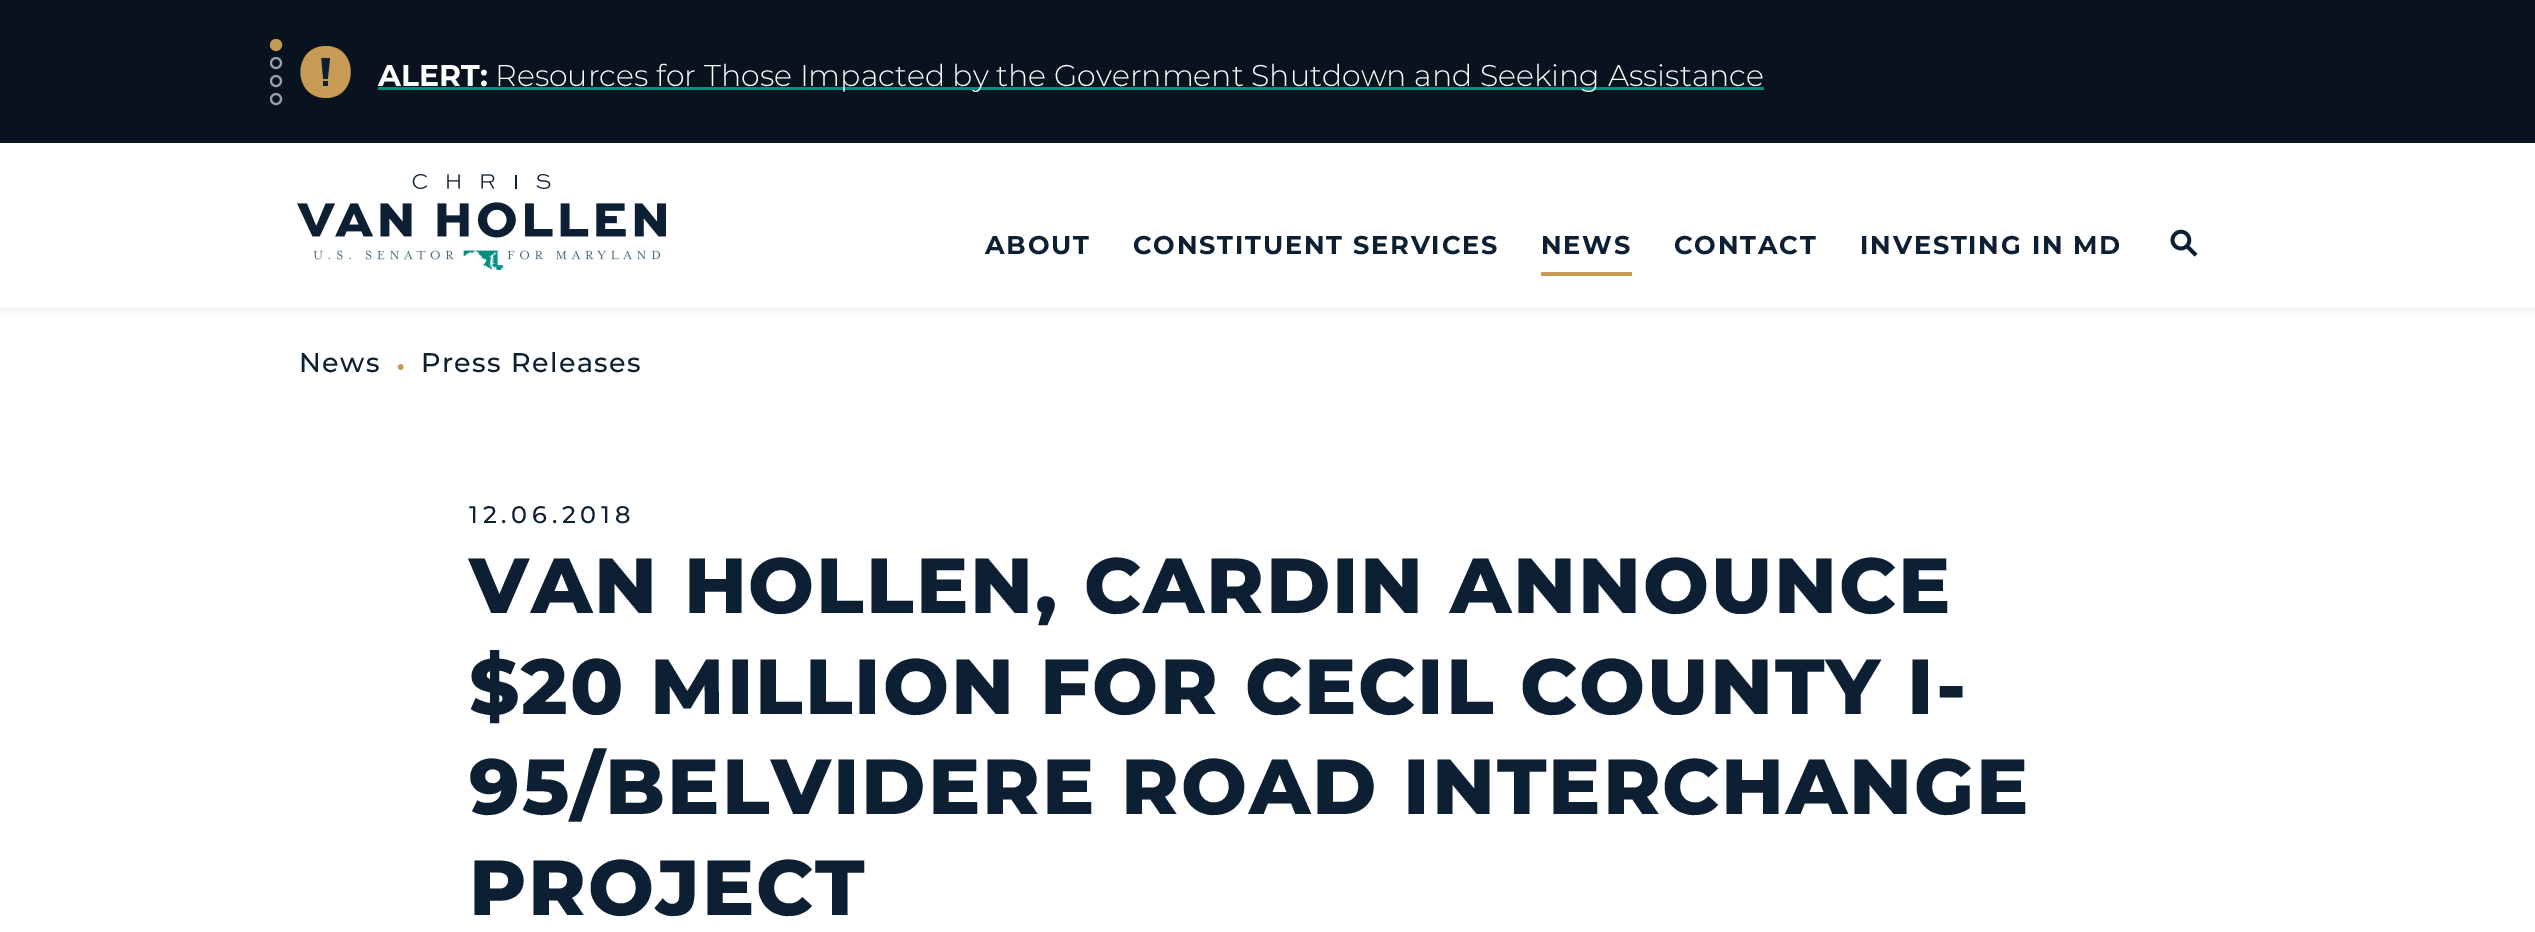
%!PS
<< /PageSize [2535 932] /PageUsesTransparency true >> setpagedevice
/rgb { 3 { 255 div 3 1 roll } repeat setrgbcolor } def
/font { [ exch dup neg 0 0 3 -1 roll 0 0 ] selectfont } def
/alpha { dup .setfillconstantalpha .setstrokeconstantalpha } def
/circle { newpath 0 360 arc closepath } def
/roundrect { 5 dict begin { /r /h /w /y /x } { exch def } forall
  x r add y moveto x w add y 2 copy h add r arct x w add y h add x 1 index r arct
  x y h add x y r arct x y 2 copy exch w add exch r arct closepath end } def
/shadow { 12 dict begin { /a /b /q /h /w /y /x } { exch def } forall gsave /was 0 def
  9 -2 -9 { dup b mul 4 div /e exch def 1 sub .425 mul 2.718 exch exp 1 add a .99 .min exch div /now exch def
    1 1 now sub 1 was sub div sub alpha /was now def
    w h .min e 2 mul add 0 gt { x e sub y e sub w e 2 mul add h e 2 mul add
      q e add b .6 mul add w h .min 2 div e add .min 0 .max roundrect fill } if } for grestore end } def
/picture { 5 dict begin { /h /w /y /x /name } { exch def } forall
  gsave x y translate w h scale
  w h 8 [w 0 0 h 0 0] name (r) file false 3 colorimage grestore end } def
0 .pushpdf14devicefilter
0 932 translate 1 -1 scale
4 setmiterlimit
255 255 255 rgb
0 0 2535 932 rectfill
8 19 31 rgb
0 0 2535 143 rectfill
198 156 85 rgb
276 45 5 circle gsave fill grestore
2 setlinewidth
stroke
156 161 165 rgb
276 63 5 circle stroke
276 81 5 circle stroke
276 99 5 circle stroke
13 31 51 rgb
321 58 9 28 rectfill
198 156 85 rgb
326 46 moveto 292 46 292 98 326 98 curveto 359 98 359 46 326 46 curveto closepath 328 86 moveto 323 86 lineto 323 81 lineto 328 81 lineto closepath 330 61 moveto 328 79 lineto 323 79 lineto 321 58 lineto 330 58 lineto closepath fill
0 142 127 rgb
378 87 1386 3 rectfill
0 0 0 rgb
0 143 2535 165 0 4 0.12 shadow
255 255 255 rgb
0 143 2535 165 rectfill
(img/1.rgb) 297 174 369 96 picture
gsave
1541 215 91 61 rectclip
198 156 85 rgb
1392 66 moveto 1780 66 lineto 1780 424 lineto 1392 424 lineto closepath 1540 195 moveto 1632 195 lineto 1636 195 1640 198 1640 202 curveto 1640 264 lineto 1640 268 1636 272 1632 272 curveto 1540 272 lineto 1536 272 1533 268 1533 264 curveto 1533 202 lineto 1533 198 1536 195 1540 195 curveto closepath eofill
grestore
(img/2.rgb) 2170 229 28 28 picture
/Montserrat-Bold 30 font
378 86 moveto (ALERT:) show
/Montserrat-Light 30 font
495 86 moveto (Resources for Those Impacted by the Government Shutdown and Seeking Assistance) show
/Montserrat-Bold 25.6 font
13 31 51 rgb
985 254 moveto 1.8 0 (ABOUT) ashow
1133 254 moveto 1.8 0 (CONSTITUENT SERVICES) ashow
1541 254 moveto 1.8 0 (NEWS) ashow
1674 254 moveto 1.8 0 (CONTACT) ashow
1860 254 moveto 1.8 0 (INVESTING IN MD) ashow
/Montserrat-Medium 27 font
299 372 moveto 1.4 0 (News) ashow
/Montserrat-Light 48 font
198 156 85 rgb
394 380 moveto (•) show
/Montserrat-Medium 27 font
13 31 51 rgb
421 372 moveto 1.4 0 (Press Releases) ashow
/Montserrat-Medium 24 font
469 523 moveto 4.75 0 (12.06.2018) ashow
/Montserrat-ExtraBold 78 font
469 613 moveto 2 0 (VAN HOLLEN, CARDIN ANNOUNCE) ashow
469 714 moveto 2 0 ($20 MILLION FOR CECIL COUNTY I-) ashow
469 814 moveto 2 0 (95/BELVIDERE ROAD INTERCHANGE) ashow
469 915 moveto 2 0 (PROJECT) ashow
.poppdf14devicefilter showpage
